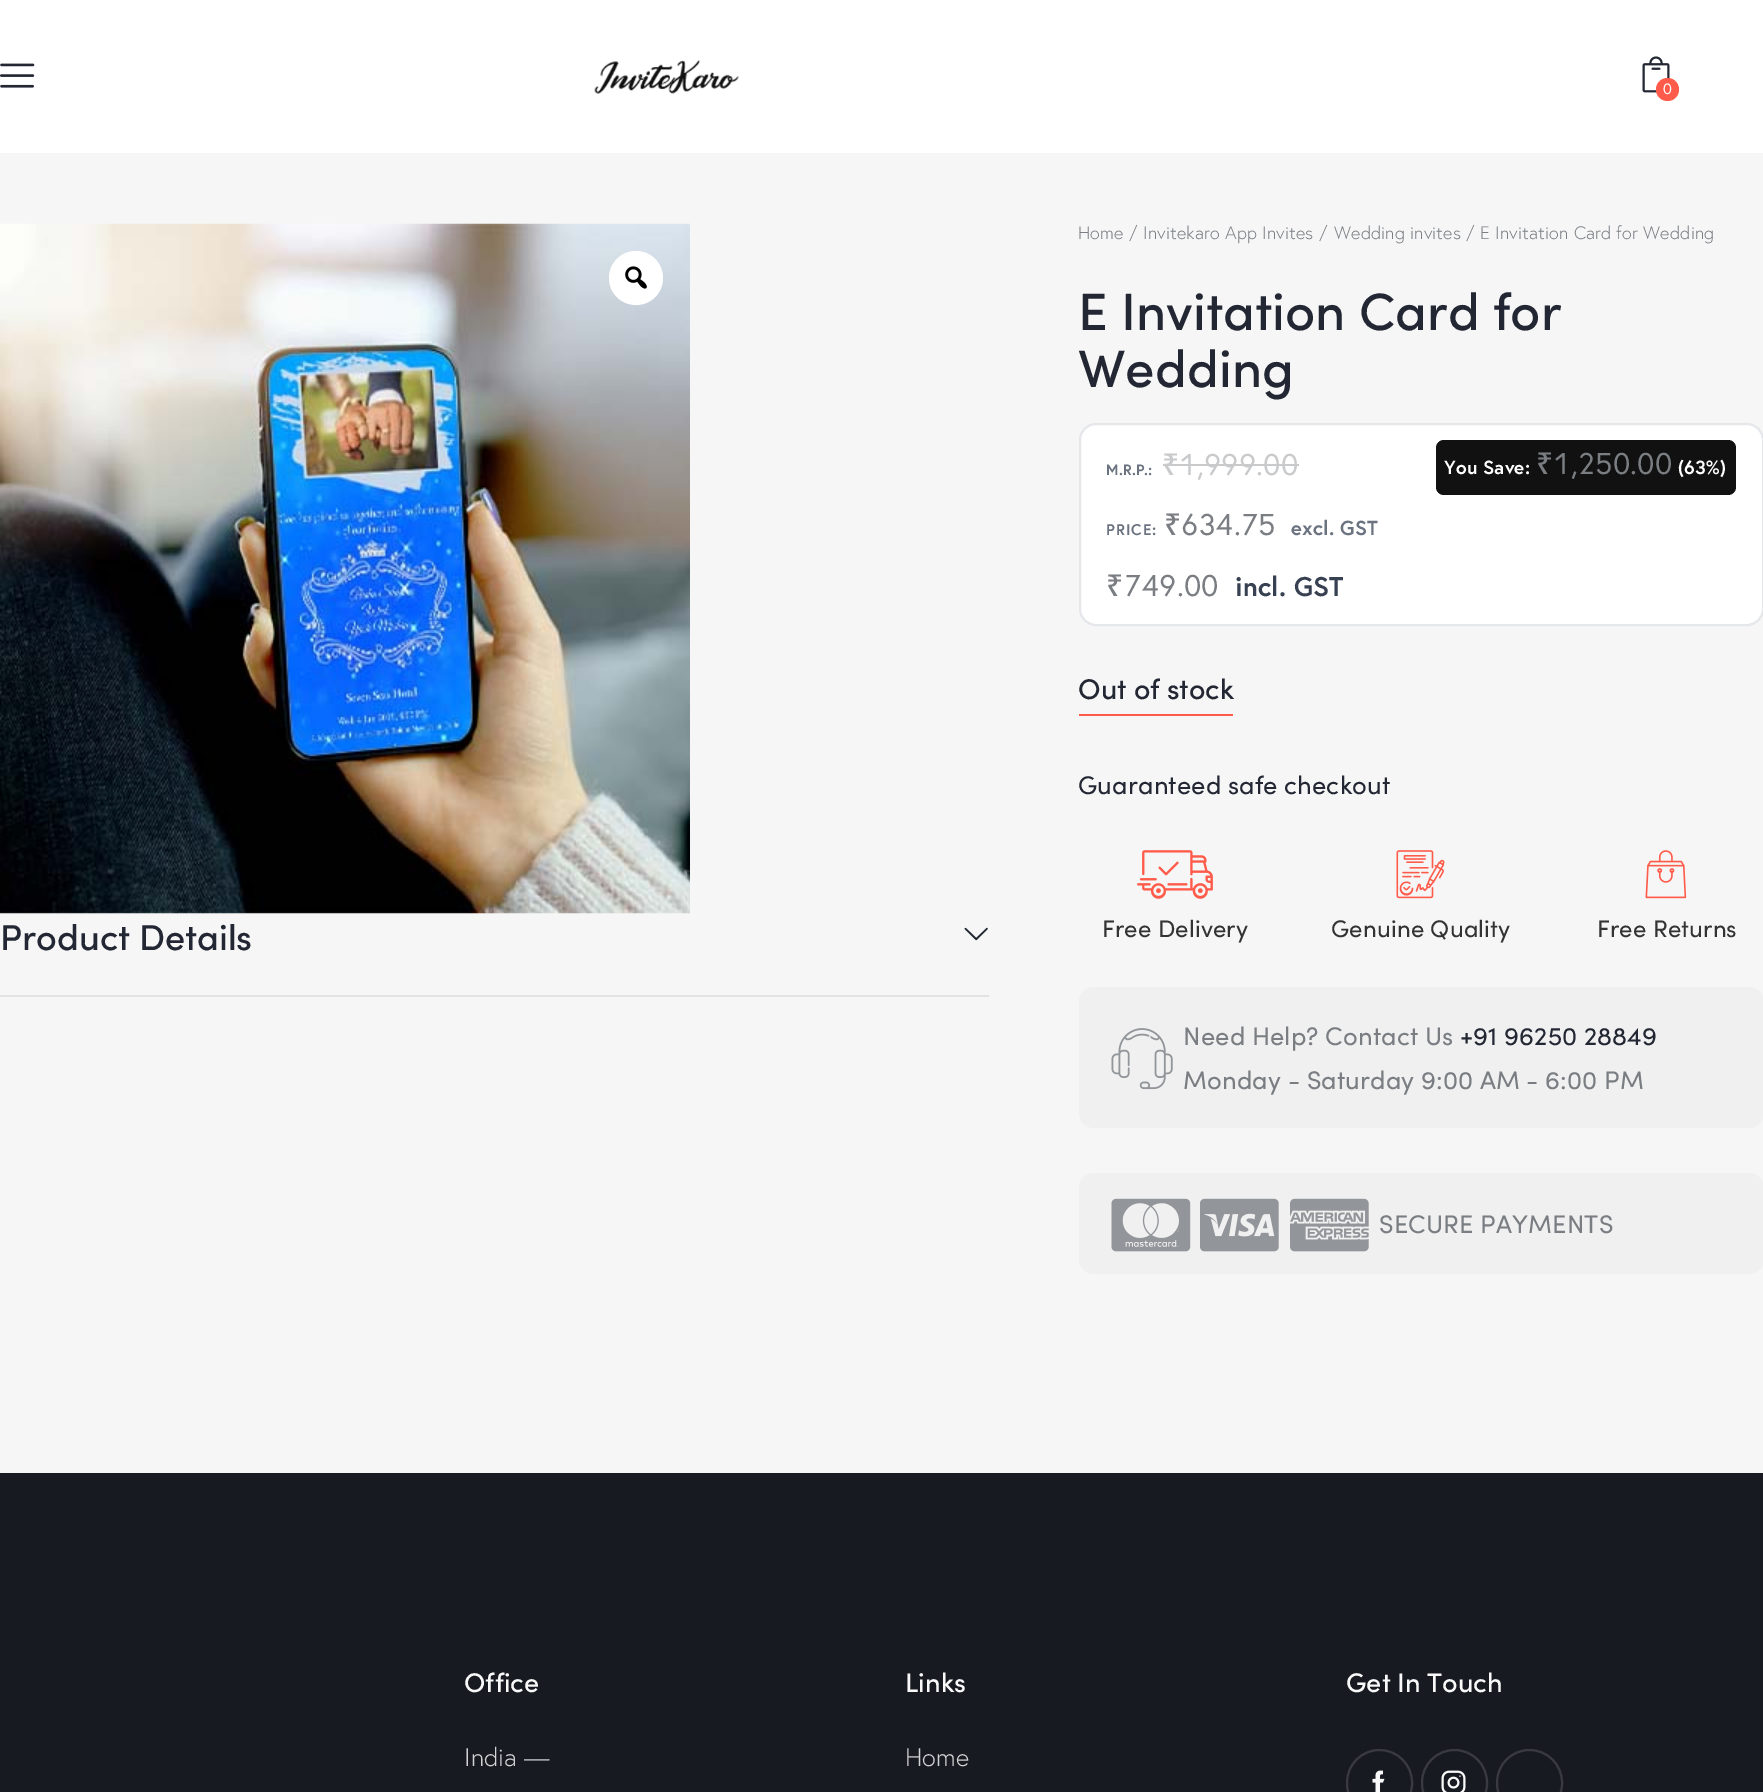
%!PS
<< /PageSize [1763 1792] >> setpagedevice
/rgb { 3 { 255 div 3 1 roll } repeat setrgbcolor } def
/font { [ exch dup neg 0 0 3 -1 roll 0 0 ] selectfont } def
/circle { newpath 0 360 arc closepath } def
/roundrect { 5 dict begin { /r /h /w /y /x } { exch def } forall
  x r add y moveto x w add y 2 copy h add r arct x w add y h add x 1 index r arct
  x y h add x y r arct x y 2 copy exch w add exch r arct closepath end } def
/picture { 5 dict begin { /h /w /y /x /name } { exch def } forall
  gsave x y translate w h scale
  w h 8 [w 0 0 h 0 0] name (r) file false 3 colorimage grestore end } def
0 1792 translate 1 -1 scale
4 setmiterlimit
246 246 246 rgb
0 0 1763 1792 rectfill
255 255 255 rgb
0 0 1763 153 rectfill
(img/1.rgb) 0 63 35 25 picture
(img/2.rgb) 594 60 145 34 picture
(img/3.rgb) 1642 56 28 37 picture
255 91 74 rgb
1667.5 89.5 11.5 circle fill
(img/4.rgb) 0 223 690 691 picture
255 255 255 rgb
636 278 27 circle fill
(img/5.rgb) 625 266 22 23 picture
1080 424 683 201 16 roundrect gsave fill grestore
229 231 235 rgb
2 setlinewidth
stroke
201 202 204 rgb
1163 464 16 2 rectfill
1179 464 120 2 rectfill
17 17 17 rgb
1436 440 300 55 8 roundrect fill
255 91 74 rgb
1079 714 154 2 rectfill
(img/6.rgb) 1137 850 76 49 picture
(img/7.rgb) 1396 850 49 49 picture
(img/8.rgb) 1645 850 42 49 picture
240 240 240 rgb
1079 987 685 141 15 roundrect fill
(img/9.rgb) 1111 1028 62 62 picture
1079 1173 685 101 15 roundrect fill
(img/10.rgb) 1111 1198 80 54 picture
(img/11.rgb) 1200 1198 79 54 picture
(img/12.rgb) 1290 1198 79 54 picture
(img/13.rgb) 964 927 24 14 picture
226 226 226 rgb
0 995 989 2 rectfill
23 26 33 rgb
0 1473 1763 319 rectfill
57 59 65 rgb
1347 1750 65 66 32.5 roundrect stroke
(img/14.rgb) 1372 1770 13 22 picture
1422 1750 65 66 32.5 roundrect stroke
(img/15.rgb) 1441 1770 25 22 picture
1497 1750 65 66 32.5 roundrect stroke
/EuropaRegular-Regular 15 font
255 255 255 rgb
1663 94 moveto (0) show
/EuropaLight-Light 18 font
122 126 131 rgb
1078 239 moveto 0.15 0 (Home) ashow
1129 239 moveto 0.15 0 (/) ashow
1143 239 moveto 0.15 0 (Invitekaro App Invites) ashow
1319 239 moveto 0.15 0 (/) ashow
1334 239 moveto 0.15 0 (Wedding invites) ashow
1466 239 moveto 0.15 0 (/) ashow
1480 239 moveto 0.15 0 (E Invitation Card for Wedding) ashow
/Sofia-Medium 52.5 font
34 39 51 rgb
1078 330 moveto (E Invitation Card for) show
1078 387 moveto (Wedding) show
/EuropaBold-Bold 15 font
107 114 128 rgb
1106 475 moveto 0.15 0 (M.R.P.:) ashow
/NotoSans-Medium 30 font
201 202 204 rgb
1162 475 moveto 0.15 0 (₹) ashow
/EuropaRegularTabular-Regular 30 font
1179 475 moveto 0.15 0 (1,999.00) ashow
/EuropaBold-Bold 19 font
255 255 255 rgb
1444 474 moveto 0.15 0 (You Save:) ashow
/NotoSans-Medium 30 font
122 126 131 rgb
1536 474 moveto 0.15 0 (₹) ashow
/EuropaRegularTabular-Regular 30 font
1553 474 moveto 0.15 0 (1,250.00) ashow
/EuropaBold-Bold 19 font
255 255 255 rgb
1678 474 moveto 0.15 0 (\(63%\)) ashow
/EuropaBold-Bold 15.5 font
107 114 128 rgb
1106 535 moveto 1 0 (PRICE:) ashow
/NotoSans-Medium 30 font
122 126 131 rgb
1164 535 moveto 0.15 0 (₹) ashow
/EuropaRegularTabular-Regular 30 font
1181 535 moveto 0.15 0 (634.75) ashow
/EuropaBold-Bold 20.25 font
107 114 128 rgb
1291 535 moveto 0.15 0 (excl. GST) ashow
/NotoSans-Medium 30 font
122 126 131 rgb
1106 596 moveto 0.15 0 (₹) ashow
/EuropaRegularTabular-Regular 30 font
1124 596 moveto 0.15 0 (749.00) ashow
/EuropaBold-Bold 27 font
55 65 81 rgb
1235 596 moveto 0.15 0 (incl. GST) ashow
/Sofia-Medium 28.5 font
34 39 51 rgb
1078 699 moveto (Out of stock) show
/Sofia-Regular 25.5 font
1078 794 moveto 0.15 0 (Guaranteed safe checkout) ashow
/Sofia-Regular 24 font
51 51 51 rgb
1102 937 moveto 0.15 0 (Free Delivery) ashow
1331 937 moveto 0.15 0 (Genuine Quality) ashow
1597 937 moveto 0.15 0 (Free Returns) ashow
/Sofia-Regular 25.5 font
122 126 131 rgb
1183 1045 moveto 0.15 0 (Need Help? Contact Us) ashow
34 39 51 rgb
1460 1045 moveto 0.15 0 (+91 96250 28849) ashow
122 126 131 rgb
1183 1089 moveto 0.15 0 (Monday - Saturday 9:00 AM - 6:00 PM) ashow
1379 1233 moveto 0.15 0 (SECURE PAYMENTS) ashow
/Sofia-Medium 36 font
34 39 51 rgb
0 950 moveto (Product Details) show
/Sofia-Medium 27 font
249 249 249 rgb
464 1692 moveto (Office) show
/EuropaLight-Light 25.5 font
210 211 213 rgb
464 1766 moveto (India —) show
/Sofia-Medium 27 font
249 249 249 rgb
905 1692 moveto (Links) show
/EuropaLight-Light 25.5 font
210 211 213 rgb
905 1766 moveto (Home) show
/Sofia-Medium 27 font
249 249 249 rgb
1346 1692 moveto (Get In Touch) show
showpage
